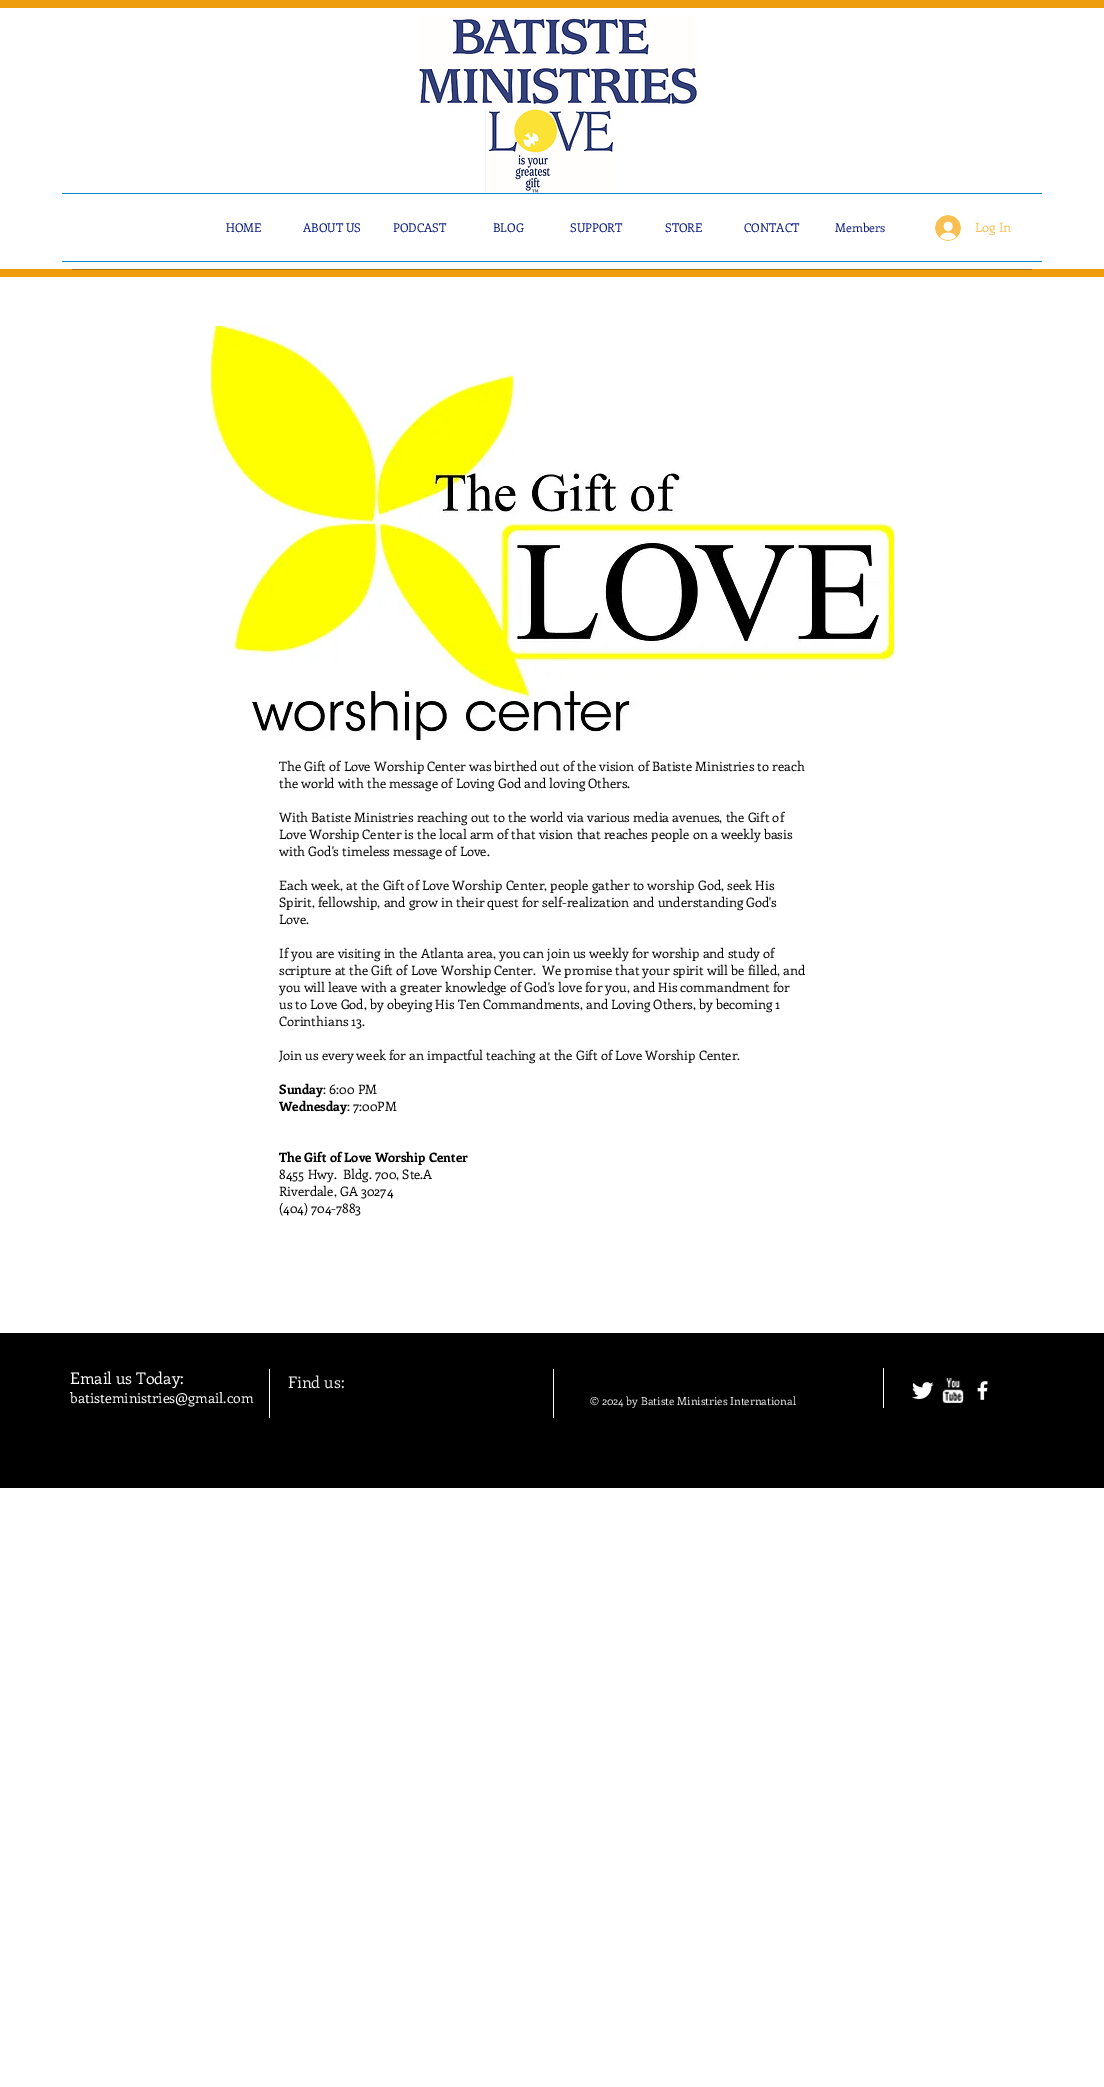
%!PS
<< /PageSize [1104 2087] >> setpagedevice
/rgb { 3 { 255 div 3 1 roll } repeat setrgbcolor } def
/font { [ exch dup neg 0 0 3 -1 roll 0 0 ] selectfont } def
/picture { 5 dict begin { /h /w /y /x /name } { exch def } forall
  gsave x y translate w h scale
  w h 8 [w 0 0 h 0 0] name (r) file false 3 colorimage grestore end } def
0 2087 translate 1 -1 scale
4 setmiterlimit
255 255 255 rgb
0 0 1104 2087 rectfill
238 158 13 rgb
0 0 1104 8 rectfill
0 269 1104 8 rectfill
(img/1.rgb) 418 17 279 89 picture
(img/2.rgb) 485 109 128 84 picture
0 136 203 rgb
62 193 980 1 rectfill
62 261 980 1 rectfill
(img/3.rgb) 935 215 26 26 picture
167 111 9 rgb
72 269 960 1 rectfill
(img/4.rgb) 211 326 683 414 picture
[
  [0 1333 1104 155 0 0 0]
  [269 1369 1 49 255 255 255]
  [553 1369 1 49 255 255 255]
  [883 1368 1 40 255 255 255]
] { aload pop rgb rectfill } forall
(img/5.rgb) 912 1382 22 18 picture
(img/6.rgb) 942 1378 22 25 picture
(img/7.rgb) 977 1381 11 19 picture
/Enriqueta-Regular 12 font
13 29 129 rgb
[
  [(HOME) 226 232]
  [(ABOUT US) 303 232]
  [(PODCAST) 393 232]
  [(BLOG) 493 232]
  [(SUPPORT) 570 232]
  [(STORE) 665 232]
  [(CONTACT) 744 232]
  [(Members) 835 232]
] { aload pop moveto show } forall
/Enriqueta-Regular 13 font
249 191 81 rgb
975 232 moveto (Log In) show
0 0 0 rgb
[
  [(The Gift of Love Worship Center was birthed out of the vision of Batiste Ministries to reach) 279 771]
  [(the world with the message of Loving God and loving Others.) 279 788]
  [(With Batiste Ministries reaching out to the world via various media avenues, the Gift of) 279 822]
  [(Love Worship Center is the local arm of that vision that reaches people on a weekly basis) 279 839]
  [(with God's timeless message of Love.) 279 856]
  [(Each week, at the Gift of Love Worship Center, people gather to worship God, seek His) 279 890]
  [(Spirit, fellowship, and grow in their quest for self-realization and understanding God's) 279 907]
  [(Love.) 279 924]
  [(If you are visiting in the Atlanta area, you can join us weekly for worship and study of) 279 958]
  [(scripture at the Gift of Love Worship Center.  We promise that your spirit will be filled, and) 279 975]
  [(you will leave with a greater knowledge of God's love for you, and His commandment for) 279 992]
  [(us to Love God, by obeying His Ten Commandments, and Loving Others, by becoming 1) 279 1009]
  [(Corinthians 13.) 279 1026]
  [(Join us every week for an impactful teaching at the Gift of Love Worship Center.) 279 1060]
] { aload pop moveto show } forall
/Enriqueta-Bold 13 font
279 1094 moveto (Sunday) show
/Enriqueta-Regular 13 font
323 1094 moveto (: 6:00 PM) show
/Enriqueta-Bold 13 font
279 1111 moveto (Wednesday) show
/Enriqueta-Regular 13 font
347 1111 moveto (: 7:00PM) show
/Enriqueta-Bold 13 font
279 1162 moveto (The Gift of Love Worship Center) show
/Enriqueta-Regular 13 font
[
  [(8455 Hwy.  Bldg. 700, Ste.A) 279 1179]
  [(Riverdale, GA 30274) 279 1196]
  [(\(404\) 704-7883) 279 1213]
] { aload pop moveto show } forall
/Enriqueta-Regular 16 font
255 255 255 rgb
70 1384 moveto (Email us Today:) show
/Enriqueta-Regular 14 font
70 1403 moveto (batisteministries@gmail.com) show
/Enriqueta-Regular 16 font
234 234 234 rgb
288 1388 moveto (Find us:) show
/Enriqueta-Regular 11 font
590 1405 moveto (© 2024 by Batiste Ministries International) show
showpage
